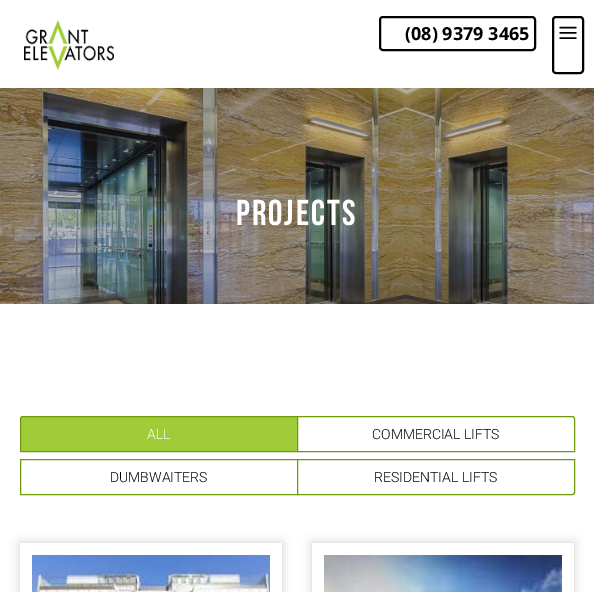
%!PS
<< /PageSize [594 592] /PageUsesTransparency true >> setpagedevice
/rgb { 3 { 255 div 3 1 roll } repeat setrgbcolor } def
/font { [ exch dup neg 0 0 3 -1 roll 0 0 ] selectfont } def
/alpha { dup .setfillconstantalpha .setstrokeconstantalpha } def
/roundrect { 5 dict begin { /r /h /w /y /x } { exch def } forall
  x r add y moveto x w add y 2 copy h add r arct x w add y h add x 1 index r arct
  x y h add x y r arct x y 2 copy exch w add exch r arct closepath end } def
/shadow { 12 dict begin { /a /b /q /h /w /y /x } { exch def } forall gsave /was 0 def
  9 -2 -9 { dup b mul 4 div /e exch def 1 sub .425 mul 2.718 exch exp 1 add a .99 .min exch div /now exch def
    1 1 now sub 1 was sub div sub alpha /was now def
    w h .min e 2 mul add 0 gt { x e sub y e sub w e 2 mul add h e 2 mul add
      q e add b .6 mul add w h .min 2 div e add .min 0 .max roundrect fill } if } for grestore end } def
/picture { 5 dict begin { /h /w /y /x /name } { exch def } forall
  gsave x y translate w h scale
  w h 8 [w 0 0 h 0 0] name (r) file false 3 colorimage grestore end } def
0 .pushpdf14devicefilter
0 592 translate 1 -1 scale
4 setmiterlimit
255 255 255 rgb
0 0 594 592 rectfill
(img/1.rgb) 24 20 90 50 picture
2 2 2 rgb
2 setlinewidth
380 17 155 33 3 roundrect stroke
0 0 0 rgb
553 17 30 56 3 roundrect stroke
(img/2.rgb) 559 26 18 13 picture
(img/3.rgb) 0 88 594 216 picture
160 204 57 rgb
23 416.5 moveto 297.5 416.5 lineto 297.5 451.5 lineto 20.5 451.5 lineto 20.5 419 lineto 20.5 417.5 21.5 416.5 23 416.5 curveto closepath gsave fill grestore
111 154 9 rgb
1 setlinewidth
stroke
255 255 255 rgb
297.5 416.5 moveto 572 416.5 lineto 573.5 416.5 574.5 417.5 574.5 419 curveto 574.5 451.5 lineto 297.5 451.5 lineto closepath gsave fill grestore
111 154 9 rgb
stroke
20.5 459.5 277 35 rectstroke
255 255 255 rgb
297.5 459.5 moveto 574.5 459.5 lineto 574.5 492 lineto 574.5 493.5 573.5 494.5 572 494.5 curveto 297.5 494.5 lineto closepath gsave fill grestore
111 154 9 rgb
stroke
gsave
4 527 moveto 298 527 lineto 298 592 lineto 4 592 lineto closepath 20 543 moveto 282 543 lineto 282 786 lineto 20 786 lineto closepath eoclip newpath
204 204 204 rgb
20 543 262 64 0 5 1 shadow
grestore
(img/4.rgb) 32 555 238 37 picture
gsave
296 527 moveto 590 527 lineto 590 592 lineto 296 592 lineto closepath 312 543 moveto 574 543 lineto 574 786 lineto 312 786 lineto closepath eoclip newpath
204 204 204 rgb
312 543 262 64 0 5 1 shadow
grestore
(img/5.rgb) 324 555 238 37 picture
/OpenSans-Bold 18 font
0 0 0 rgb
405 40 moveto (\(08\) 9379 3465) show
/BebasNeue-Bold 36 font
255 255 255 rgb
236 225 moveto 2 0 (PROJECTS) ashow
/Roboto-Light 14 font
147 439 moveto (ALL) show
0 0 0 rgb
[
  [(COMMERCIAL LIFTS) 372 439]
  [(DUMBWAITERS) 110 482]
  [(RESIDENTIAL LIFTS) 374 482]
] { aload pop moveto show } forall
.poppdf14devicefilter showpage
